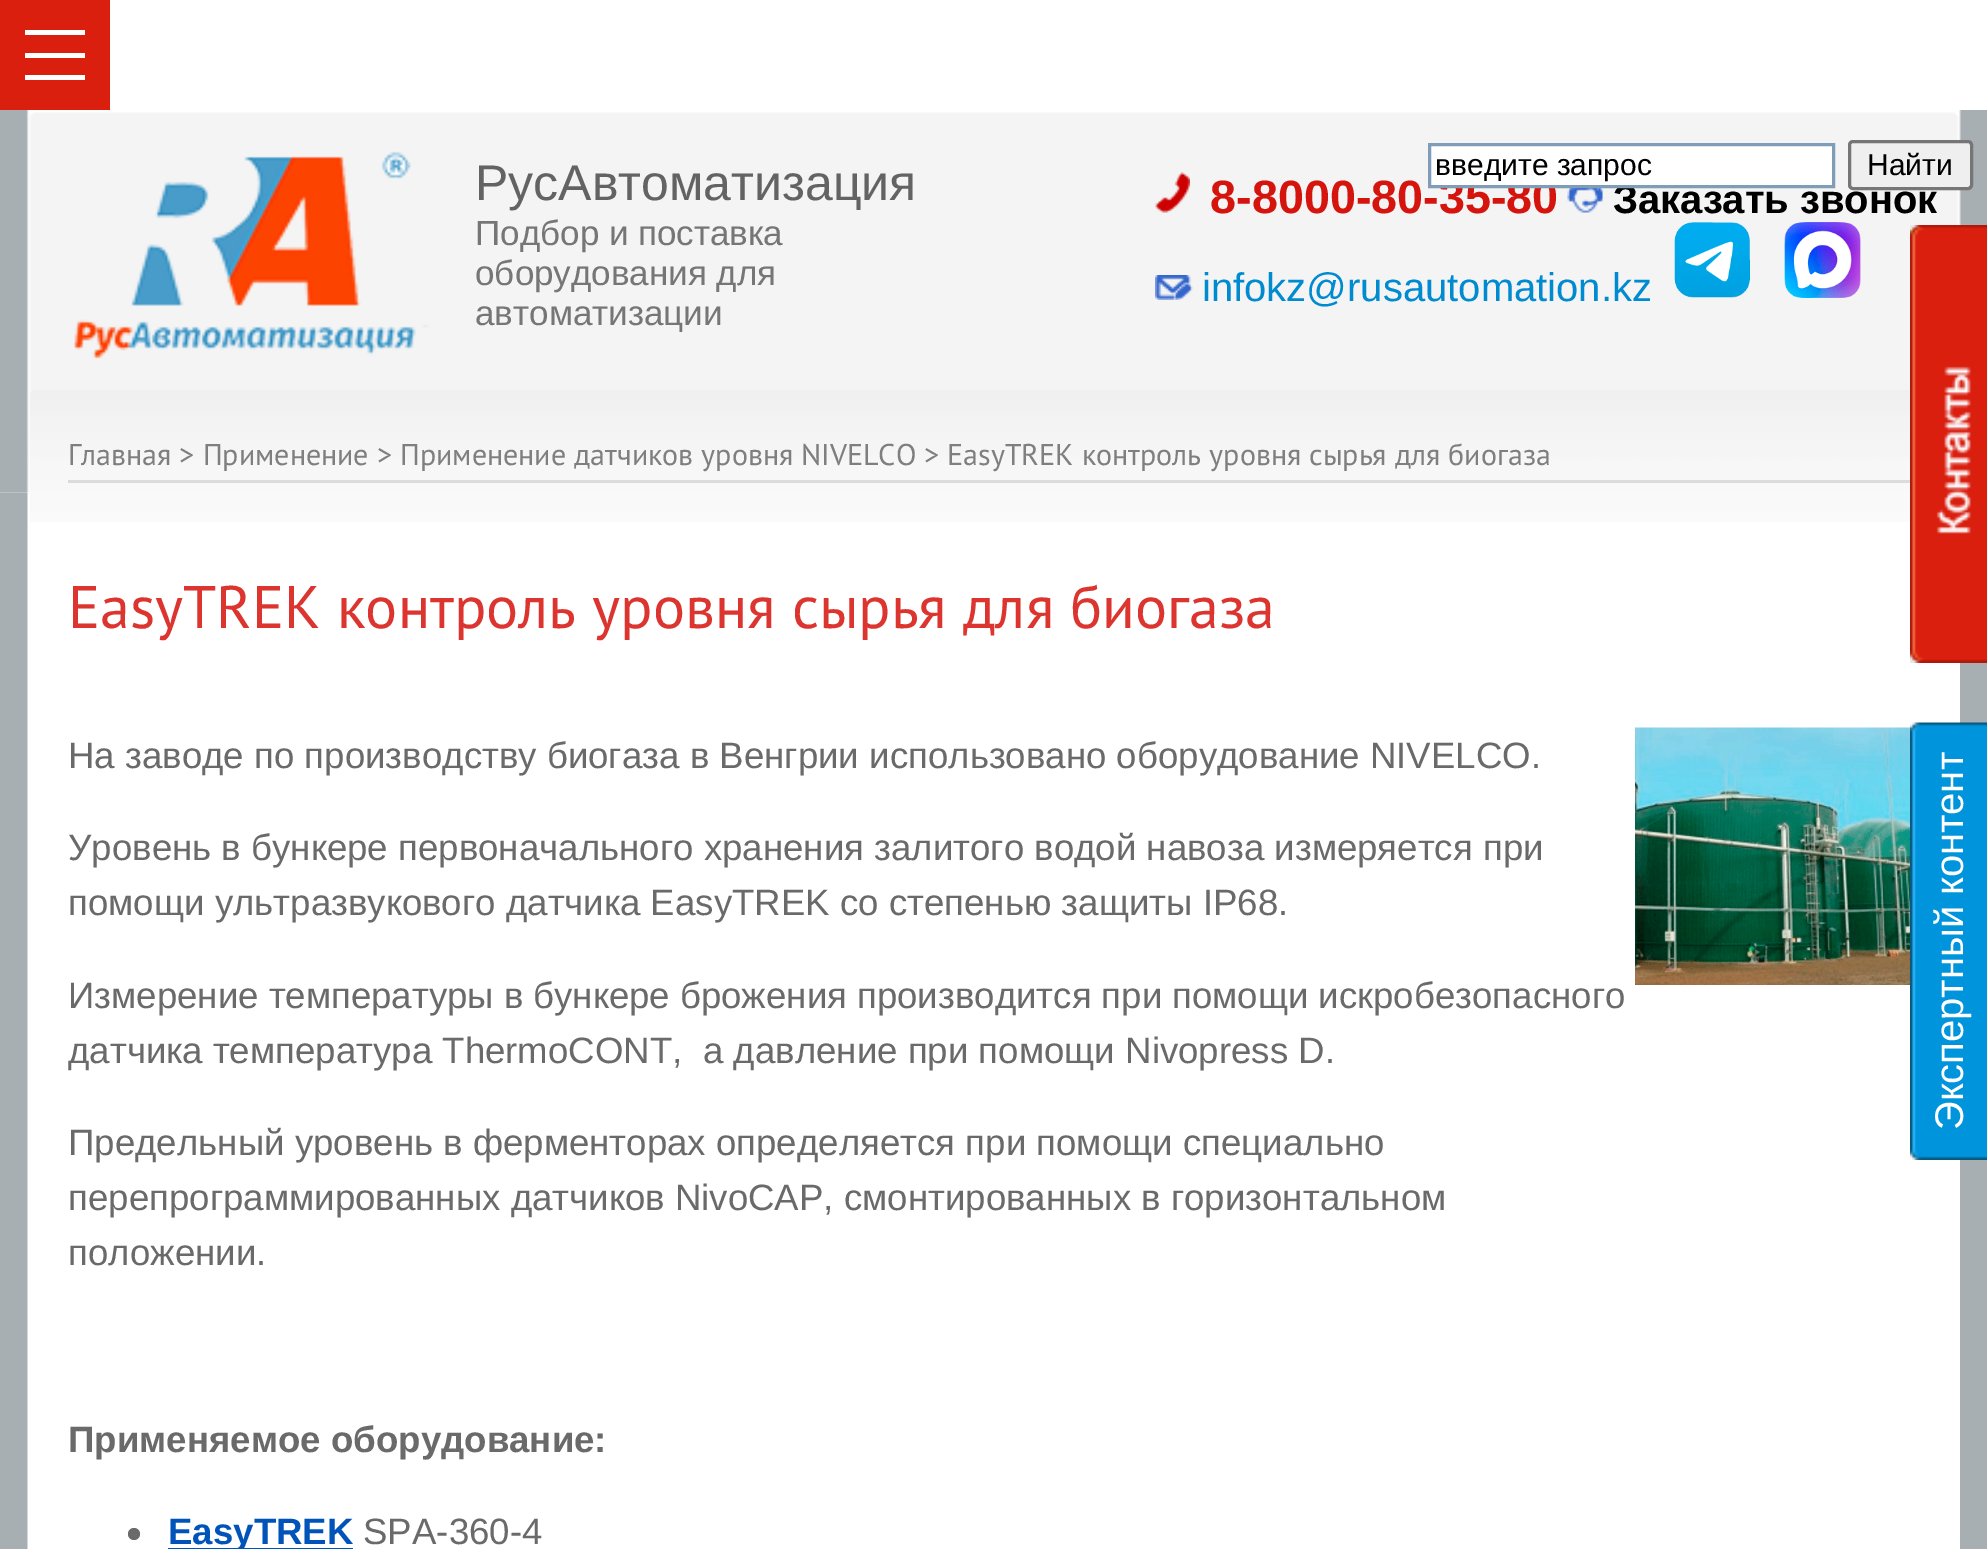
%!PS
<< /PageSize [1987 1549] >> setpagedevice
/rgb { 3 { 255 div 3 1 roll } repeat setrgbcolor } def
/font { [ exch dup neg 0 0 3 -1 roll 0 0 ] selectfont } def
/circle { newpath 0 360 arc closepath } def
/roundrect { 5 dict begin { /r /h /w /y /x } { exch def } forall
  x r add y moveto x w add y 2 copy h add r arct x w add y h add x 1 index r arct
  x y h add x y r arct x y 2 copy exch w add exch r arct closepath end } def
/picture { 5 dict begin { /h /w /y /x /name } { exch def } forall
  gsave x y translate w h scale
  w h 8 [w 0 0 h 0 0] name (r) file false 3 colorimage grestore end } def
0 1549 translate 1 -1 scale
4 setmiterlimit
255 255 255 rgb
0 0 1987 1549 rectfill
(img/1.rgb) 0 492 1987 1057 picture
[
  [0 0 110 110 219 31 14]
  [25 30 60 5 255 255 255]
  [25 75 60 5 255 255 255]
  [25 53 60 5 255 255 255]
] { aload pop rgb rectfill } forall
(img/2.rgb) 0 110 1955 383 picture
(img/3.rgb) 1955 110 32 115 picture
(img/4.rgb) 0 110 33 383 picture
(img/5.rgb) 74 151 355 208 picture
(img/6.rgb) 1155 172 35 41 picture
(img/7.rgb) 1567 188 36 25 picture
(img/8.rgb) 1155 275 38 25 picture
(img/9.rgb) 1674 222 76 76 picture
(img/10.rgb) 1784 222 77 76 picture
(img/11.rgb) 30 390 1880 132 picture
219 219 219 rgb
68 480 1842 3 rectfill
(img/12.rgb) 1635 727 281 258 picture
106 106 106 rgb
134 1534 6 circle fill
0 84 185 rgb
168 1548 185 1 rectfill
(img/13.rgb) 1910 225 77 438 picture
(img/14.rgb) 1910 722 77 438 picture
/LiberationSans-Regular 50 font
99 99 99 rgb
475 200 moveto (РусАвтоматизация) show
/LiberationSans-Regular 35 font
118 118 118 rgb
[
  [(Подбор и поставка) 475 245]
  [(оборудования для) 475 285]
  [(автоматизации) 475 325]
] { aload pop moveto show } forall
/LiberationSans-Bold 46.75 font
213 20 13 rgb
1210 213 moveto (8-8000-80-35-80) show
/LiberationSans-Bold 40 font
0 0 0 rgb
1613 213 moveto (Заказать звонок) show
239 239 239 rgb
1849.5 141.5 122 47 3.5 roundrect gsave fill grestore
118 118 118 rgb
3 setlinewidth
stroke
/LiberationSans-Regular 30 font
0 0 0 rgb
1867 175 moveto (Найти) show
255 255 255 rgb
1429.5 144.5 moveto 1833.5 144.5 lineto 1833.5 186.5 lineto 1429.5 186.5 lineto closepath gsave fill grestore
127 157 185 rgb
stroke
0 0 0 rgb
1435 175 moveto (введите запрос) show
/LiberationSans-Regular 40 font
0 139 208 rgb
1202 301 moveto (infokz@rusautomation.kz) show
/PTSans-Regular 30 font
127 127 127 rgb
68 465 moveto (Главная > Применение > Применение датчиков уровня NIVELCO > EasyTREK контроль уровня сырья для биогаза) show
/PTSans-Regular 60 font
220 53 47 rgb
68 628 moveto (EasyTREK контроль уровня сырья для биогаза) show
/LiberationSans-Regular 36.65 font
106 106 106 rgb
[
  [(На заводе по производству биогаза в Венгрии использовано оборудование NIVELCO.) 68 768]
  [(Уровень в бункере первоначального хранения залитого водой навоза измеряется при) 68 860]
  [(помощи ультразвукового датчика EasyTREK со степенью защиты IP68.) 68 915]
] { aload pop moveto show } forall
68 1008 moveto -0.25 0 32 (Измерение температуры в бункере брожения производится при помощи искробезопасного) widthshow
[
  [(датчика температура ThermoCONT,  а давление при помощи Nivopress D.) 68 1063]
  [(Предельный уровень в ферменторах определяется при помощи специально) 68 1155]
  [(перепрограммированных датчиков NivoCAP, смонтированных в горизонтальном) 68 1210]
  [(положении.) 68 1265]
] { aload pop moveto show } forall
/LiberationSans-Bold 36.65 font
68 1452 moveto (Применяемое оборудование:) show
0 84 185 rgb
168 1544 moveto (EasyTREK) show
/LiberationSans-Regular 36.65 font
106 106 106 rgb
363 1544 moveto (SPA-360-4) show
/LiberationSans-Regular 40 font
255 255 255 rgb
gsave 1963 1130 translate -90 rotate 0 0 moveto (Экспертный контент) show grestore
showpage
